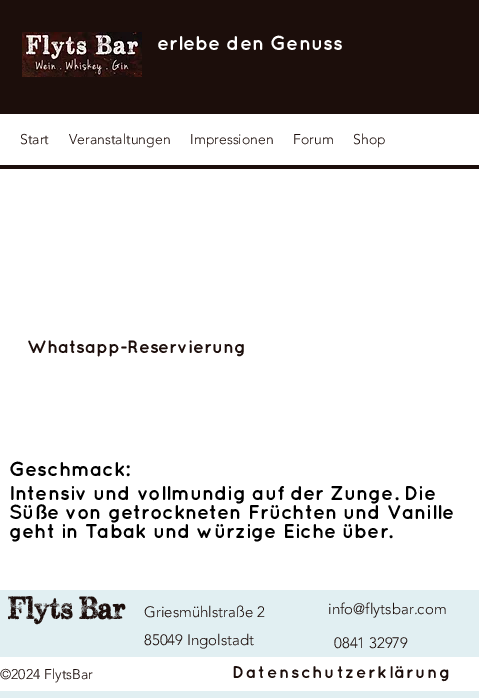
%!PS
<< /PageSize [479 698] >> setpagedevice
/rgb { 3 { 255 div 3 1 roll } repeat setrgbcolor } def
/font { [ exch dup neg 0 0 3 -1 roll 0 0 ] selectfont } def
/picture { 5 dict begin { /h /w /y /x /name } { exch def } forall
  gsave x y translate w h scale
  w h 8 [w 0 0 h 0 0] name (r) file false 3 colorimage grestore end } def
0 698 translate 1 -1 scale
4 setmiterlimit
255 255 255 rgb
0 0 479 698 rectfill
28 14 11 rgb
0 0 479 169 rectfill
(img/1.rgb) 22 32 120 45 picture
[
  [0 114 479 51 255 255 255]
  [0 590 479 108 225 239 242]
  [0 657 479 34 255 255 255]
] { aload pop rgb rectfill } forall
/Quicksand-Bold 20 font
157 50 moveto (erlebe den Genuss) show
/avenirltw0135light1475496-Light 14 font
28 14 11 rgb
[
  [(Start) 20 144]
  [(Veranstaltungen) 69 144]
  [(Impressionen) 190 144]
  [(Forum) 293 144]
  [(Shop) 353 144]
] { aload pop moveto show } forall
/Quicksand-Bold 18 font
27 353 moveto (Whatsapp-Reservierung) show
/Quicksand-Bold 20 font
0 0 0 rgb
[
  [(Geschmack:) 9 476]
  [(Intensiv und vollmundig auf der Zunge. Die) 9 500]
  [(Süße von getrockneten Früchten und Vanille) 9 519]
  [(geht in Tabak und würzige Eiche über.) 9 538]
] { aload pop moveto show } forall
/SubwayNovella-Regular 31 font
28 14 11 rgb
8 619 moveto (Flyts Bar) show
/avenirltw0135light1475496-Light 15 font
[
  [(Griesmühlstraße 2) 144 617]
  [(85049 Ingolstadt) 144 645]
  [(info@flytsbar.com) 328 614]
  [(0841 32979) 334 648]
] { aload pop moveto show } forall
/avenirltw0135light1475496-Light 14 font
0 679 moveto (©2024 FlytsBar) show
/Quicksand-Bold 17 font
232 678 moveto 1.7 0 (Datenschutzerklärung) ashow
showpage
